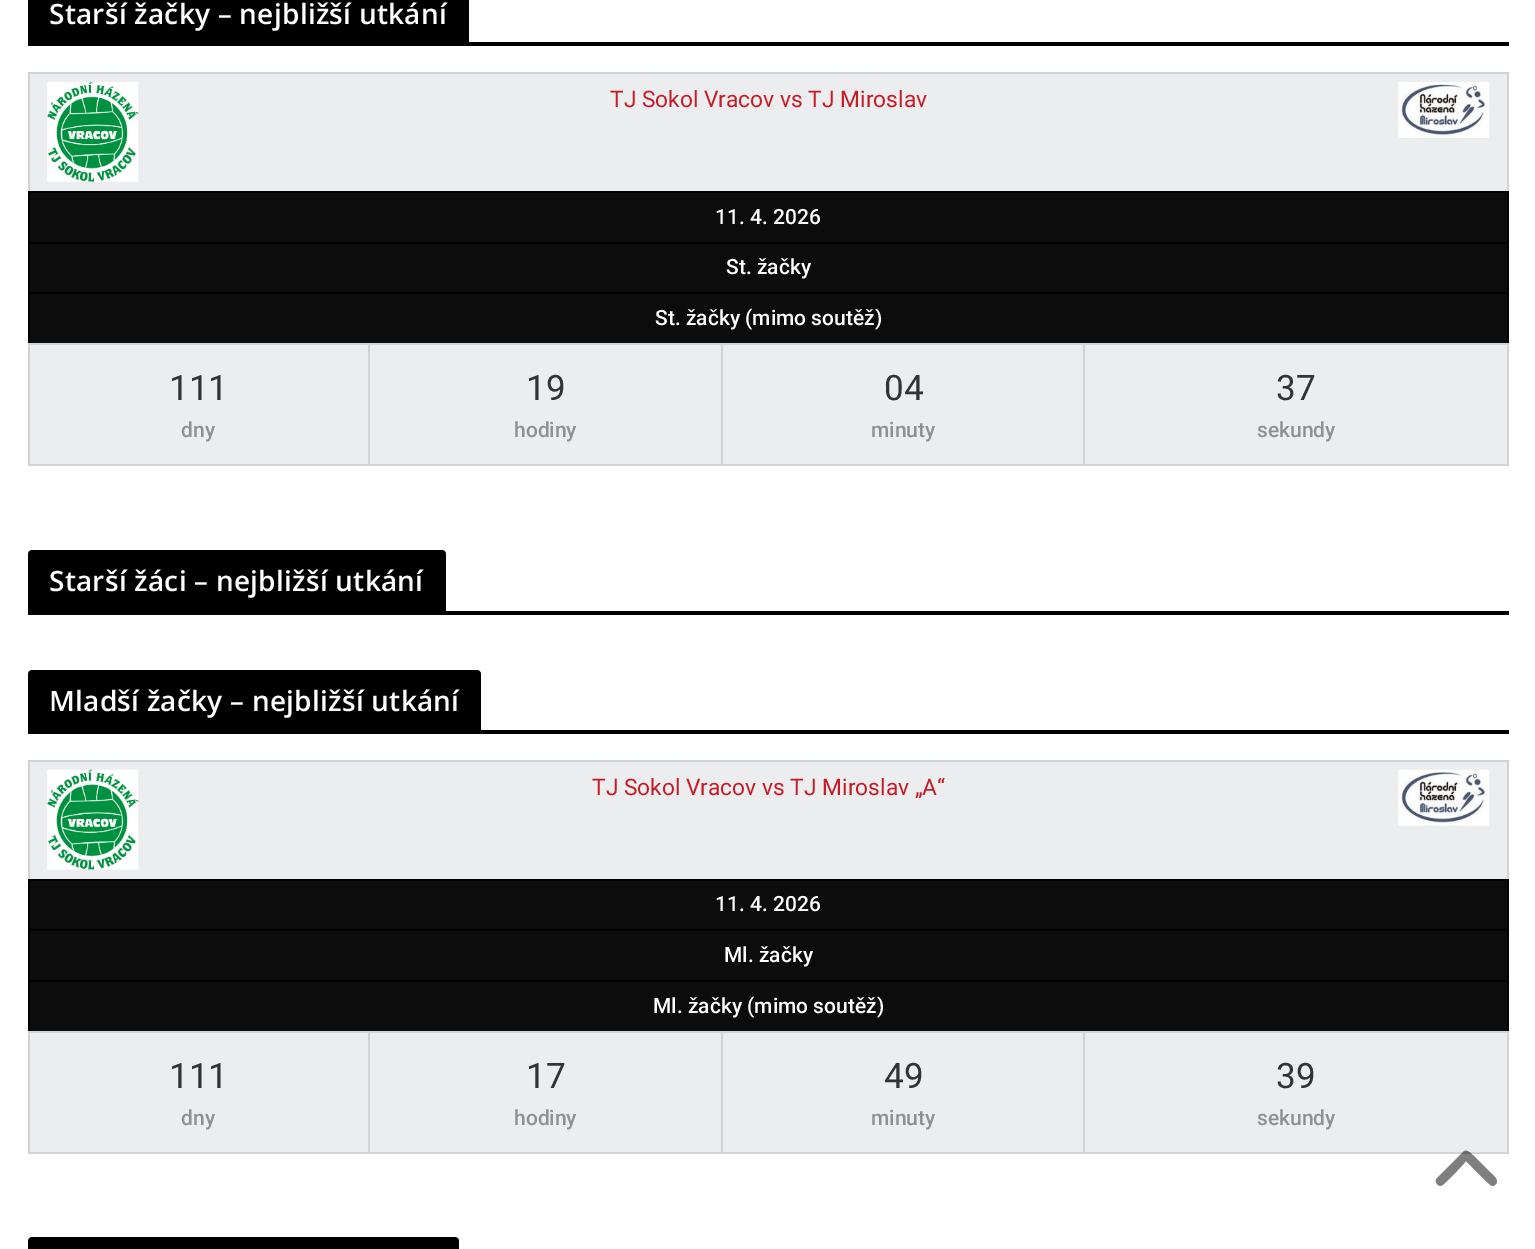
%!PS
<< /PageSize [1535 1249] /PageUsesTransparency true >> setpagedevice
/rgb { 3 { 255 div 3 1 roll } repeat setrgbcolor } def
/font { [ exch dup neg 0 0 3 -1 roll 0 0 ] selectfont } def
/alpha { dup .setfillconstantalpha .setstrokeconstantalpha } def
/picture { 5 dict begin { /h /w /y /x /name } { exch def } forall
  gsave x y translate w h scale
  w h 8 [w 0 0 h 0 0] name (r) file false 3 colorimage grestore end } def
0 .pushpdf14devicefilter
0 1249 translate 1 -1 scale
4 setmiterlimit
255 255 255 rgb
0 0 1535 1249 rectfill
[
  [28 42 1481 4 0 0 0]
  [28 0 441 42 0 0 0]
  [30 74 1477 117 236 237 238]
  [28 72 1481 2 210 211 212]
  [1507 72 2 119 210 211 212]
  [28 72 2 119 210 211 212]
] { aload pop rgb rectfill } forall
(img/1.rgb) 47 82 92 100 picture
(img/2.rgb) 1398 82 92 56 picture
[
  [30 193 1477 49 12 12 12]
  [28 191 1481 2 0 0 0]
  [1507 191 2 51 0 0 0]
  [28 191 2 51 0 0 0]
  [30 244 1477 48 12 12 12]
  [28 242 1481 2 0 0 0]
  [1507 242 2 50 0 0 0]
  [28 242 2 50 0 0 0]
  [30 294 1477 49 12 12 12]
  [28 292 1481 2 0 0 0]
  [1507 292 2 51 0 0 0]
  [28 292 2 51 0 0 0]
  [30 345 1477 119 236 237 238]
  [28 343 1481 2 210 211 212]
  [1507 343 2 123 210 211 212]
  [28 464 1481 2 210 211 212]
  [28 343 2 123 210 211 212]
  [368 343 2 123 210 211 212]
  [721 343 2 123 210 211 212]
  [1083 343 2 123 210 211 212]
  [28 611 1481 4 0 0 0]
] { aload pop rgb rectfill } forall
32 550 moveto 442 550 lineto 444 550 446 552 446 554 curveto 446 611 lineto 28 611 lineto 28 554 lineto 28 552 30 550 32 550 curveto closepath fill
28 730 1481 4 rectfill
32 670 moveto 477 670 lineto 479 670 481 672 481 674 curveto 481 730 lineto 28 730 lineto 28 674 lineto 28 672 30 670 32 670 curveto closepath fill
[
  [30 762 1477 117 236 237 238]
  [28 760 1481 2 210 211 212]
  [1507 760 2 119 210 211 212]
  [28 760 2 119 210 211 212]
] { aload pop rgb rectfill } forall
(img/3.rgb) 47 769 92 101 picture
(img/4.rgb) 1398 769 92 57 picture
[
  [30 881 1477 48 12 12 12]
  [28 879 1481 2 0 0 0]
  [1507 879 2 50 0 0 0]
  [28 879 2 50 0 0 0]
  [30 931 1477 49 12 12 12]
  [28 929 1481 2 0 0 0]
  [1507 929 2 51 0 0 0]
  [28 929 2 51 0 0 0]
  [30 982 1477 49 12 12 12]
  [28 980 1481 2 0 0 0]
  [1507 980 2 51 0 0 0]
  [28 980 2 51 0 0 0]
  [30 1033 1477 119 236 237 238]
  [28 1031 1481 2 210 211 212]
  [1507 1031 2 122 210 211 212]
  [28 1152 1481 2 210 211 212]
  [28 1031 2 122 210 211 212]
  [368 1031 2 122 210 211 212]
  [721 1031 2 122 210 211 212]
  [1083 1031 2 122 210 211 212]
] { aload pop rgb rectfill } forall
0 0 0 rgb
32 1237 moveto 455 1237 lineto 457 1237 459 1239 459 1241 curveto 459 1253 lineto 28 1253 lineto 28 1241 lineto 28 1239 30 1237 32 1237 curveto closepath fill
0.5 alpha
1463 1152 moveto 1467 1148 1471 1154 1474 1156 curveto 1492 1174 lineto 1494 1176 1499 1180 1496 1184 curveto 1495 1185 1494 1186 1492 1186 curveto 1489 1185 1470 1165 1466 1161 curveto 1463 1165 1444 1185 1441 1186 curveto 1437 1186 1434 1181 1437 1178 curveto closepath fill
/OpenSans-SemiBold 28 font
1 alpha
255 255 255 rgb
49 24 moveto 0.25 0 (Starší žačky – nejbližší utkání) ashow
/Roboto-Regular 22.75 font
197 29 39 rgb
610 107 moveto (TJ Sokol Vracov vs TJ Miroslav) show
/Roboto-Medium 21 font
255 255 255 rgb
[
  [(11. 4. 2026) 715 224]
  [(St. žačky) 726 274]
  [(St. žačky \(mimo soutěž\)) 655 325]
] { aload pop moveto show } forall
/Roboto-Regular 35 font
51 51 51 rgb
169 400 moveto (111) show
/Roboto-Medium 21 font
144 144 145 rgb
181 437 moveto (dny) show
/Roboto-Regular 35 font
51 51 51 rgb
526 400 moveto (19) show
/Roboto-Medium 21 font
144 144 145 rgb
514 437 moveto (hodiny) show
/Roboto-Regular 35 font
51 51 51 rgb
884 400 moveto (04) show
/Roboto-Medium 21 font
144 144 145 rgb
871 437 moveto (minuty) show
/Roboto-Regular 35 font
51 51 51 rgb
1276 400 moveto (37) show
/Roboto-Medium 21 font
144 144 145 rgb
1257 437 moveto (sekundy) show
/OpenSans-SemiBold 28 font
255 255 255 rgb
49 591 moveto 0.25 0 (Starší žáci – nejbližší utkání) ashow
49 711 moveto 0.25 0 (Mladší žačky – nejbližší utkání) ashow
/Roboto-Regular 22.75 font
197 29 39 rgb
592 795 moveto (TJ Sokol Vracov vs TJ Miroslav „A“) show
/Roboto-Medium 21 font
255 255 255 rgb
[
  [(11. 4. 2026) 715 911]
  [(Ml. žačky) 724 962]
  [(Ml. žačky \(mimo soutěž\)) 653 1013]
] { aload pop moveto show } forall
/Roboto-Regular 35 font
51 51 51 rgb
169 1088 moveto (111) show
/Roboto-Medium 21 font
144 144 145 rgb
181 1125 moveto (dny) show
/Roboto-Regular 35 font
51 51 51 rgb
526 1088 moveto (17) show
/Roboto-Medium 21 font
144 144 145 rgb
514 1125 moveto (hodiny) show
/Roboto-Regular 35 font
51 51 51 rgb
884 1088 moveto (49) show
/Roboto-Medium 21 font
144 144 145 rgb
871 1125 moveto (minuty) show
/Roboto-Regular 35 font
51 51 51 rgb
1276 1088 moveto (39) show
/Roboto-Medium 21 font
144 144 145 rgb
1257 1125 moveto (sekundy) show
.poppdf14devicefilter showpage
